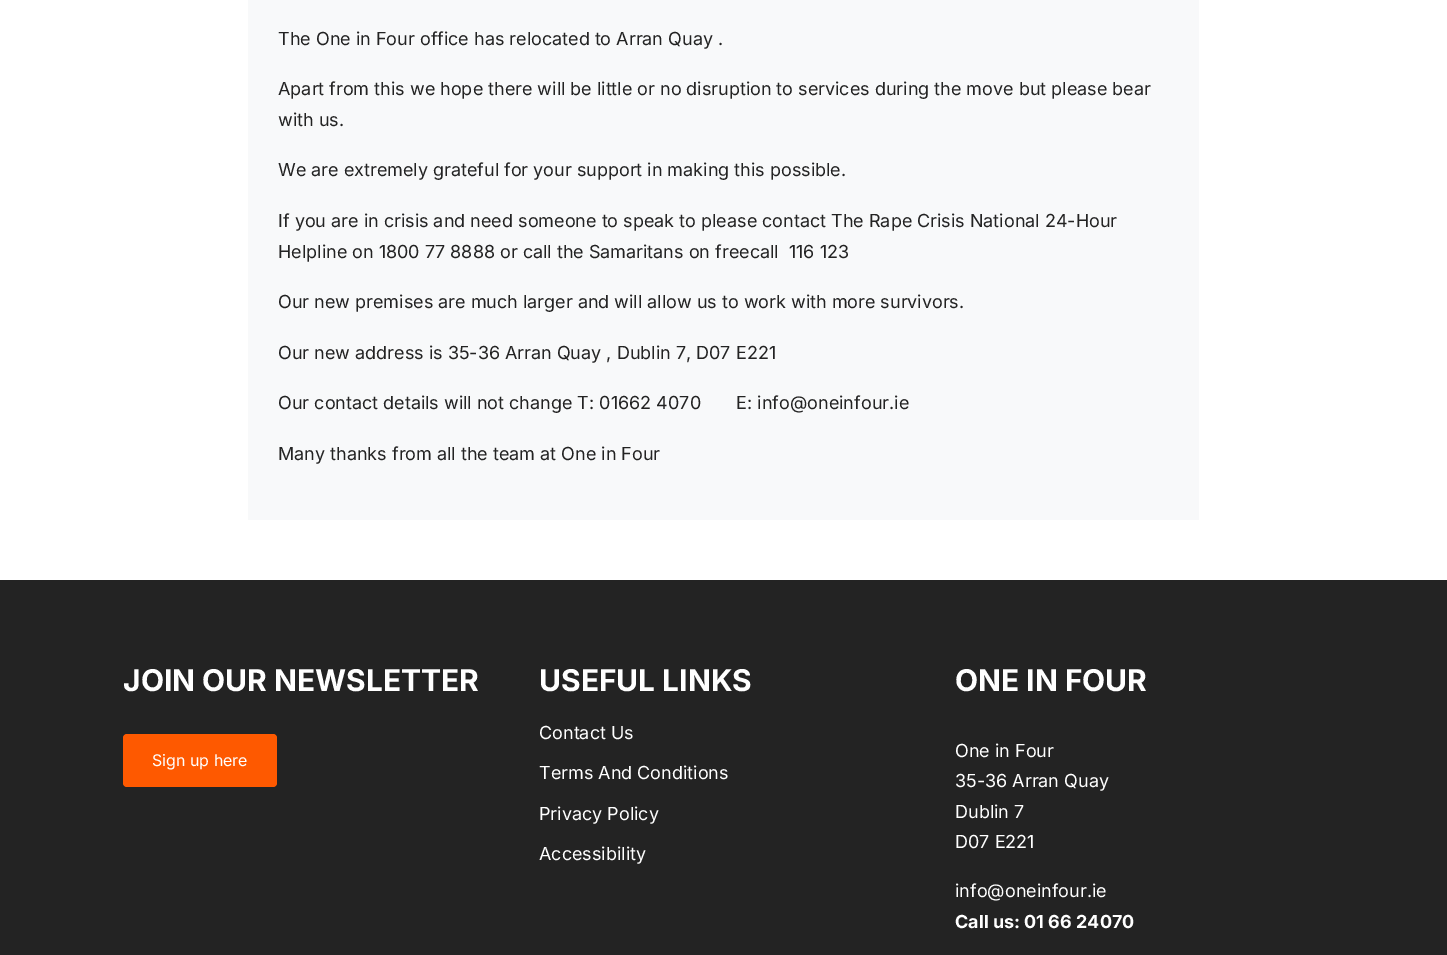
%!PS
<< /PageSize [1447 955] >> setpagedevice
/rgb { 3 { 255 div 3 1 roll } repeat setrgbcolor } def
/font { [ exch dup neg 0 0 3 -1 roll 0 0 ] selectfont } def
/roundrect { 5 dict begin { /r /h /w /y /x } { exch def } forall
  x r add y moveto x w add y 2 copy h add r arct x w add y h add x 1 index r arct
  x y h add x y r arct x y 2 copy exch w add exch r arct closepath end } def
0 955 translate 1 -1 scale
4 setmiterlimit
255 255 255 rgb
0 0 1447 955 rectfill
248 249 250 rgb
248 0 951 520 rectfill
35 35 35 rgb
0 580 1447 375 rectfill
254 89 0 rgb
123 734 154 53 4 roundrect fill
/Inter-Regular 18 font
35 35 35 rgb
[
  [(The One in Four office has relocated to Arran Quay .) 278 45]
  [(Apart from this we hope there will be little or no disruption to services during the move but please bear) 278 95]
  [(with us.) 278 126]
  [(We are extremely grateful for your support in making this possible.) 278 176]
  [(If you are in crisis and need someone to speak to please contact The Rape Crisis National 24-Hour) 278 227]
  [(Helpline on 1800 77 8888 or call the Samaritans on freecall  116 123) 278 258]
  [(Our new premises are much larger and will allow us to work with more survivors.) 278 308]
  [(Our new address is 35-36 Arran Quay , Dublin 7, D07 E221) 278 359]
  [(Our contact details will not change T: 01662 4070       E: info@oneinfour.ie) 278 409]
  [(Many thanks from all the team at One in Four) 278 460]
] { aload pop moveto show } forall
/Inter-Bold 30 font
255 255 255 rgb
123 691 moveto (JOIN OUR NEWSLETTER) show
/Inter-Regular 16 font
152 766 moveto (Sign up here) show
/Inter-Bold 30 font
539 691 moveto (USEFUL LINKS) show
/Inter-Regular 18 font
[
  [(Contact Us) 539 739]
  [(Terms And Conditions) 539 779]
  [(Privacy Policy) 539 820]
  [(Accessibility) 539 860]
] { aload pop moveto show } forall
/Inter-Bold 30 font
955 691 moveto (ONE IN FOUR) show
/Inter-Regular 18 font
[
  [(One in Four) 955 757]
  [(35-36 Arran Quay) 955 787]
  [(Dublin 7) 955 818]
  [(D07 E221) 955 848]
  [(info@oneinfour.ie) 955 897]
] { aload pop moveto show } forall
/Inter-Bold 18 font
955 928 moveto (Call us: 01 66 24070) show
showpage
